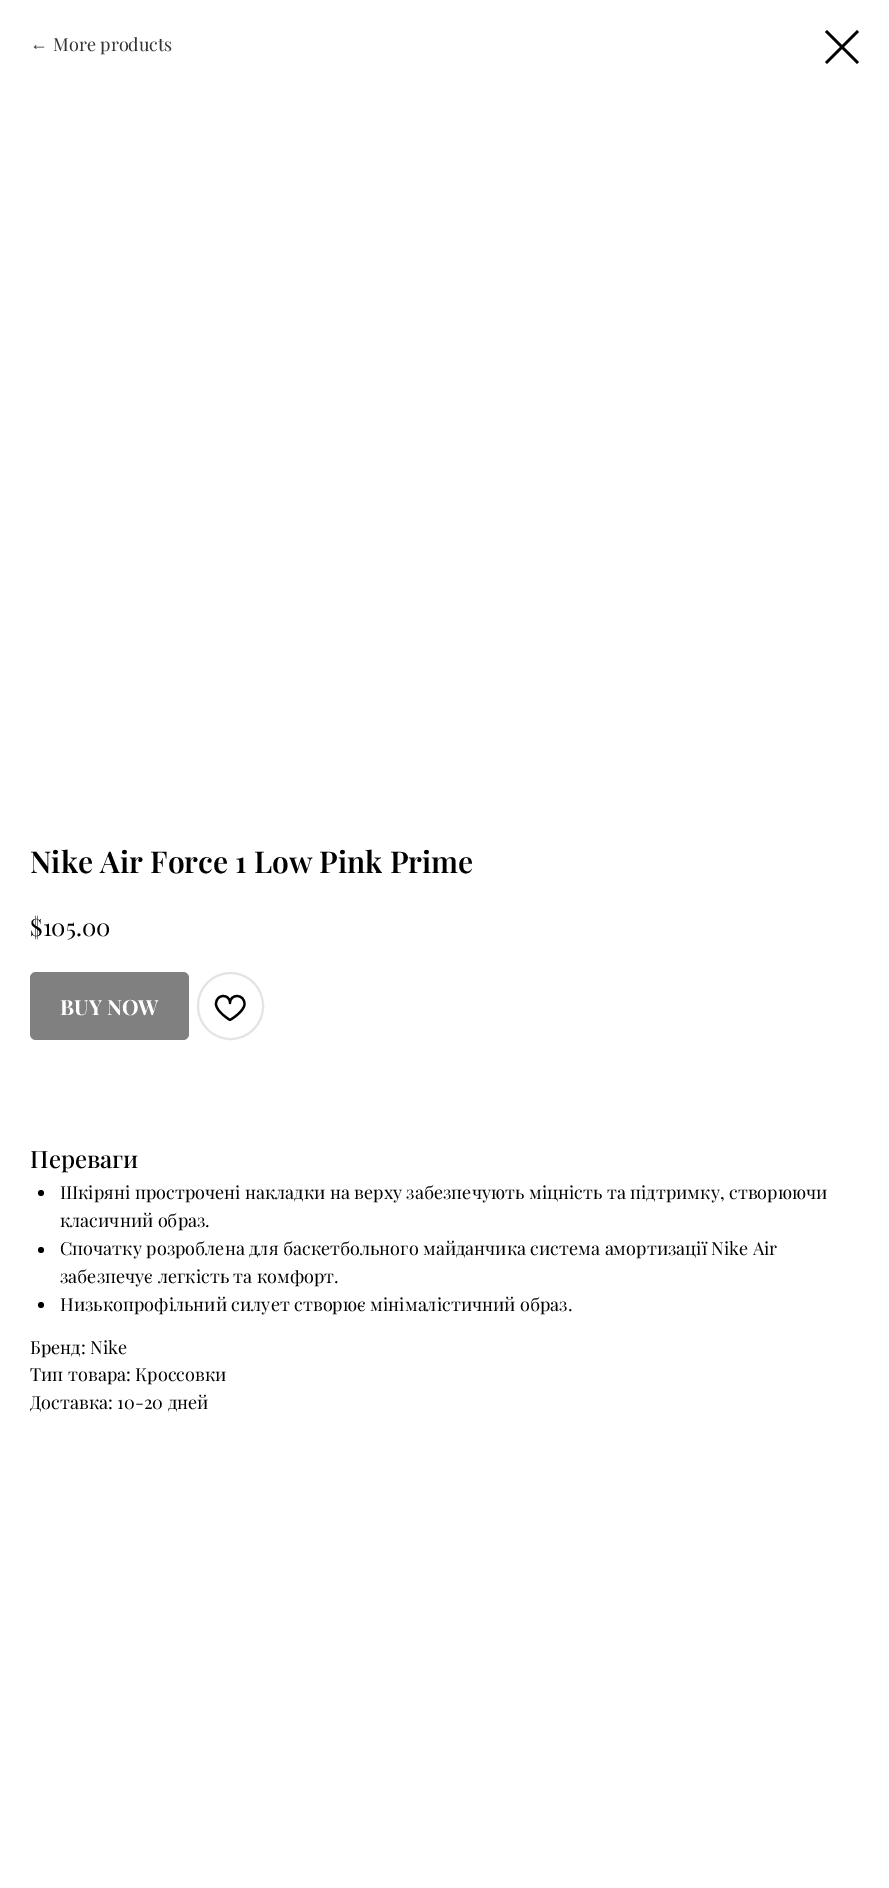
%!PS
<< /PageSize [889 1888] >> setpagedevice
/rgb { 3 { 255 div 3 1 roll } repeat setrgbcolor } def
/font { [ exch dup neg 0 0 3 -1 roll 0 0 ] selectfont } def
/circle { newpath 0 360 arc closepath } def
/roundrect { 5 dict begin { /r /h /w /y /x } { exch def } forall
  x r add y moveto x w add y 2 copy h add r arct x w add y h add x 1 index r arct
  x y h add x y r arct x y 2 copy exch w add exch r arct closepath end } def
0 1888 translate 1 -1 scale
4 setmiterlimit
255 255 255 rgb
0 0 889 1888 rectfill
0 0 0 rgb
825 32 moveto 827 30 lineto 859 62 lineto 857 64 lineto closepath eofill
857 30 moveto 859 32 lineto 827 64 lineto 825 62 lineto closepath eofill
128 128 128 rgb
30 972 159 68 6 roundrect fill
228 228 228 rgb
2 setlinewidth
198 973 65 66 32.5 roundrect stroke
0 0 0 rgb
2.2 setlinewidth
1 setlinejoin
244.5 1004 moveto 244.5 1011.5 230 1020 230 1020 curveto 230 1020 216 1011.5 216 1004 curveto 216 993.5 230 993.5 230 1003 curveto 230 993.5 244.5 993.5 244.5 1004 curveto closepath stroke
41 1193 3 circle fill
41 1250 3 circle fill
41 1305 3 circle fill
/LiberationSans-Regular 18 font
51 51 51 rgb
30 50 moveto (←) show
/PlayfairDisplay-Regular 18 font
53 51 moveto (More products) show
/PlayfairDisplay-SemiBold 30 font
0 0 0 rgb
30 873 moveto (Nike Air Force 1 Low Pink Prime) show
/PlayfairDisplay-Regular 24 font
30 936 moveto ($105.00) show
/PlayfairDisplay-Bold 21 font
255 255 255 rgb
60 1015 moveto (BUY NOW) show
/PlayfairDisplay-Medium 24 font
0 0 0 rgb
30 1168 moveto (Переваги) show
/PlayfairDisplay-Regular 18 font
[
  [(Шкіряні прострочені накладки на верху забезпечують міцність та підтримку, створюючи) 60 1199]
  [(класичний образ.) 60 1227]
  [(Спочатку розроблена для баскетбольного майданчика система амортизації Nike Air) 60 1255]
  [(забезпечує легкість та комфорт.) 60 1283]
  [(Низькопрофільний силует створює мінімалістичний образ.) 60 1311]
  [(Бренд: Nike) 30 1354]
  [(Тип товара: Кроссовки) 30 1381]
  [(Доставка: 10-20 дней) 30 1409]
] { aload pop moveto show } forall
showpage
